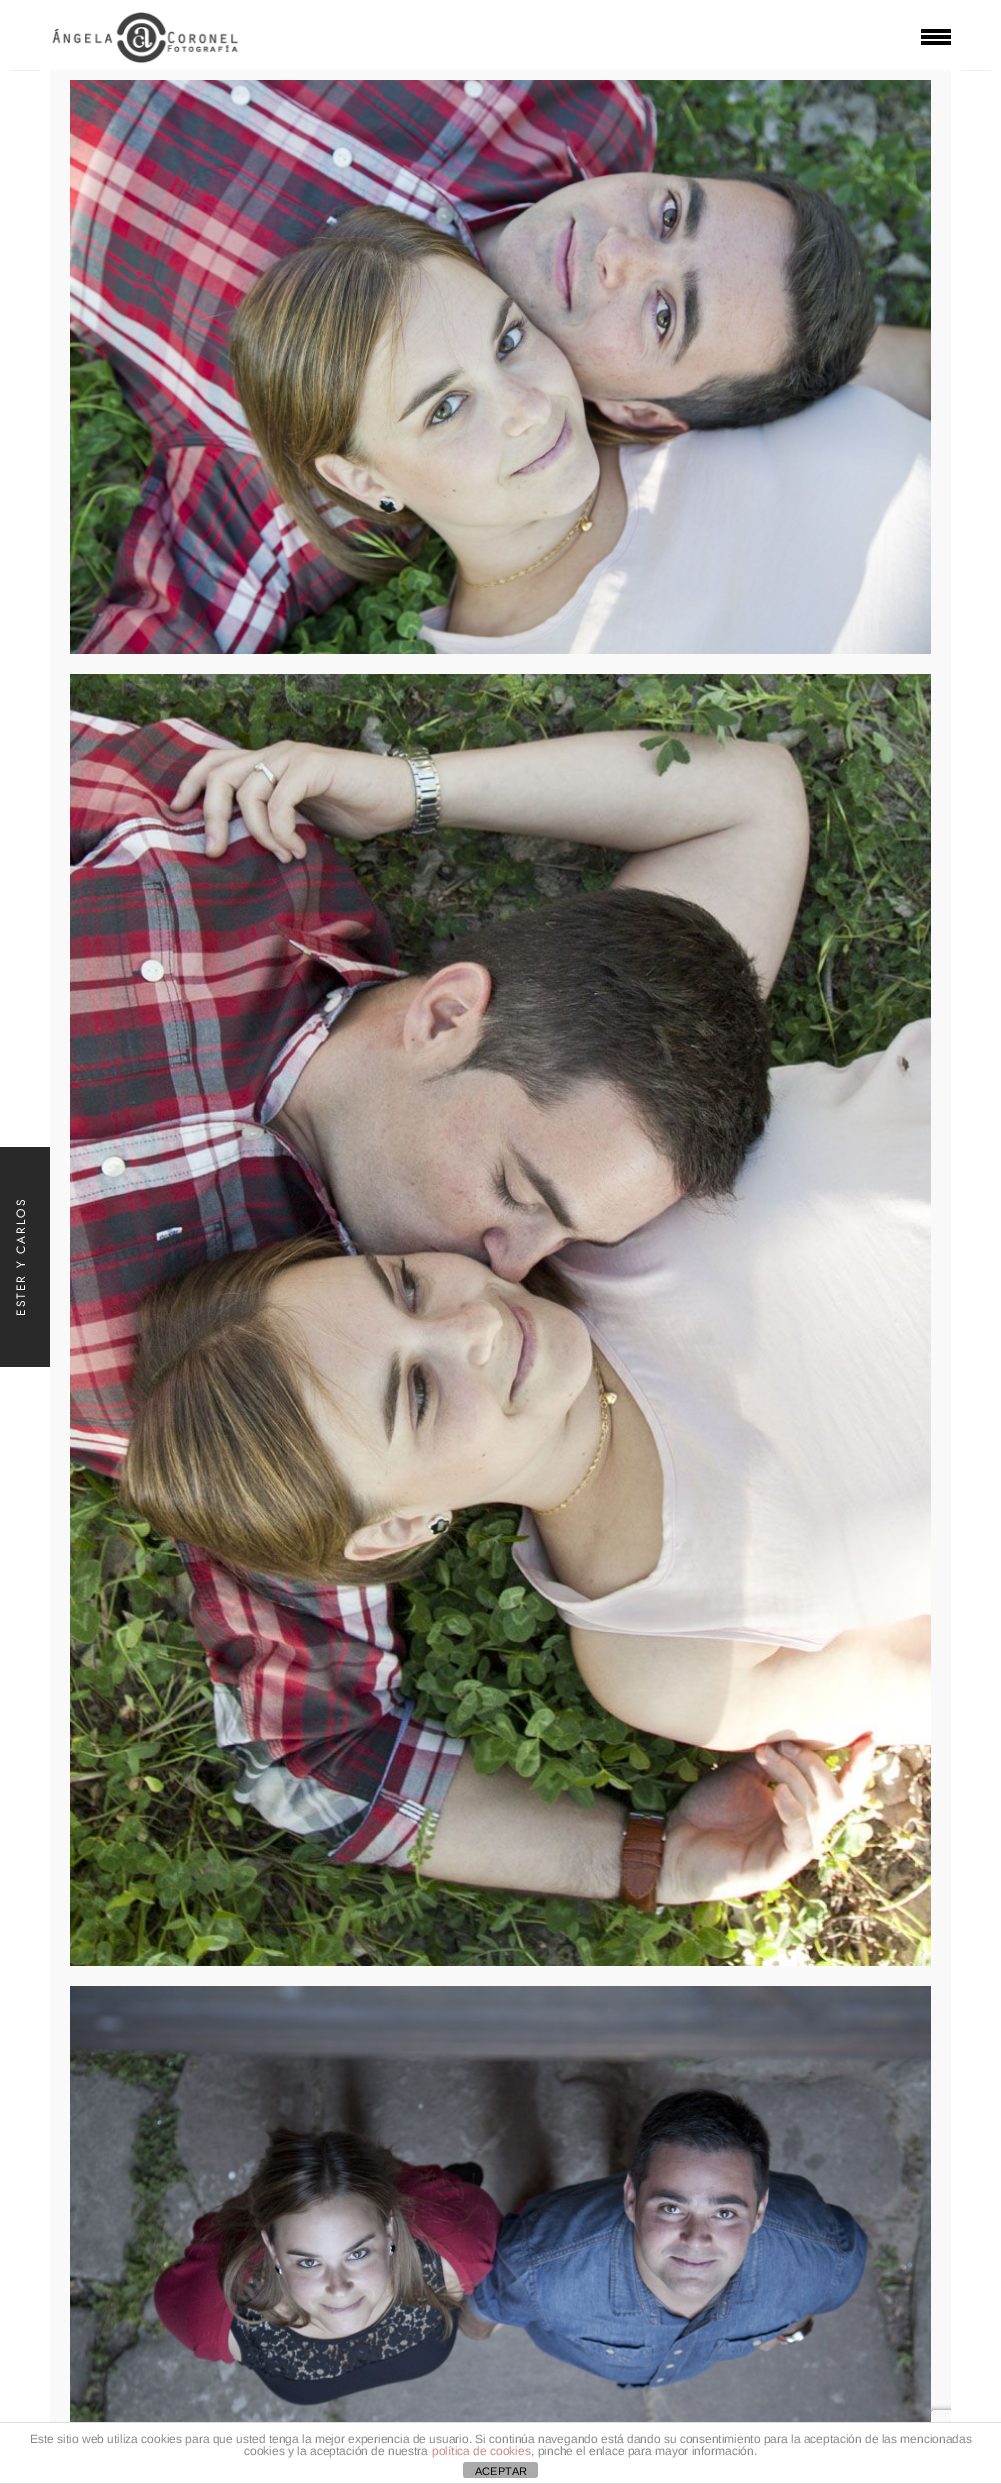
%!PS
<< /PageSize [1001 2484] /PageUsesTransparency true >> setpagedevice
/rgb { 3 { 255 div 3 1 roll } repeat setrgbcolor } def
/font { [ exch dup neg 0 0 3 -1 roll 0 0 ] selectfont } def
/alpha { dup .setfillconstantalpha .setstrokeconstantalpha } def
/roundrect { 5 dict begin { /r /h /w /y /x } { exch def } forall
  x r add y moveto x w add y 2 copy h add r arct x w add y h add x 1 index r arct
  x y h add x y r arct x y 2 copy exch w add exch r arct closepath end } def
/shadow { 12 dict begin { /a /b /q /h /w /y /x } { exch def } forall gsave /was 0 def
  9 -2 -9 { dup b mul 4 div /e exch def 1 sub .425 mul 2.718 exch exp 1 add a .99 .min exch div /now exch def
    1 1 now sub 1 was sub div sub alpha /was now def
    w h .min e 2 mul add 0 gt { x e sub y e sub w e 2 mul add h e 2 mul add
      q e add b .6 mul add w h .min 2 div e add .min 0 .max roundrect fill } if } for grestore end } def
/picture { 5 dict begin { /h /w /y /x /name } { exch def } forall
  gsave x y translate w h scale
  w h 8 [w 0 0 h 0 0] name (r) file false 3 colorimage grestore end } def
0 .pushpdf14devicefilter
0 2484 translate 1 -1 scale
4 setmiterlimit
249 249 249 rgb
0 0 1001 2484 rectfill
255 255 255 rgb
0 0 1001 70 rectfill
(img/1.rgb) 52 12 187 52 picture
[
  [921 29 30 4 0 0 0]
  [921 35 30 4 0 0 0]
  [921 41 30 4 0 0 0]
  [0 70 50 2352 255 255 255]
  [10 70 30 1 238 238 238]
] { aload pop rgb rectfill } forall
gsave
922 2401 moveto 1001 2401 lineto 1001 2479 lineto 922 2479 lineto closepath 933 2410 moveto 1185 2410 lineto 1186 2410 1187 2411 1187 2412 curveto 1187 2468 lineto 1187 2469 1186 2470 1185 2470 curveto 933 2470 lineto 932 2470 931 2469 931 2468 curveto 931 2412 lineto 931 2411 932 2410 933 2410 curveto closepath eoclip newpath
128 128 128 rgb
931 2410 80 60 2 2.5 1 shadow
grestore
[
  [951 70 50 2352 255 255 255]
  [961 70 30 1 238 238 238]
  [0 1147 50 220 41 41 41]
] { aload pop rgb rectfill } forall
(img/2.rgb) 70 80 861 574 picture
(img/3.rgb) 70 674 861 1292 picture
(img/4.rgb) 70 1986 861 436 picture
[
  [0 2423 1001 60 255 255 255]
  [0 2422 1001 1 221 221 221]
  [0 2483 1001 1 221 221 221]
] { aload pop rgb rectfill } forall
170 170 170 rgb
463 2462 75 16 3 roundrect fill
/Jost-Regular 12 font
255 255 255 rgb
gsave 25 1316 translate -90 rotate 0 0 moveto 2 0 (ESTER Y CARLOS) ashow grestore
/LiberationSans-Regular 12 font
136 136 136 rgb
30 2443 moveto (Este sitio web utiliza cookies para que usted tenga la mejor experiencia de usuario. Si continúa navegando está dando su consentimiento para la aceptación de las mencionadas) show
244 2455 moveto (cookies y la aceptación de nuestra) show
204 136 136 rgb
432 2455 moveto (política de cookies) show
136 136 136 rgb
531 2455 moveto (, pinche el enlace para mayor información.) show
/LiberationSans-Regular 11 font
0 0 0 rgb
475 2475 moveto (ACEPTAR) show
.poppdf14devicefilter showpage
